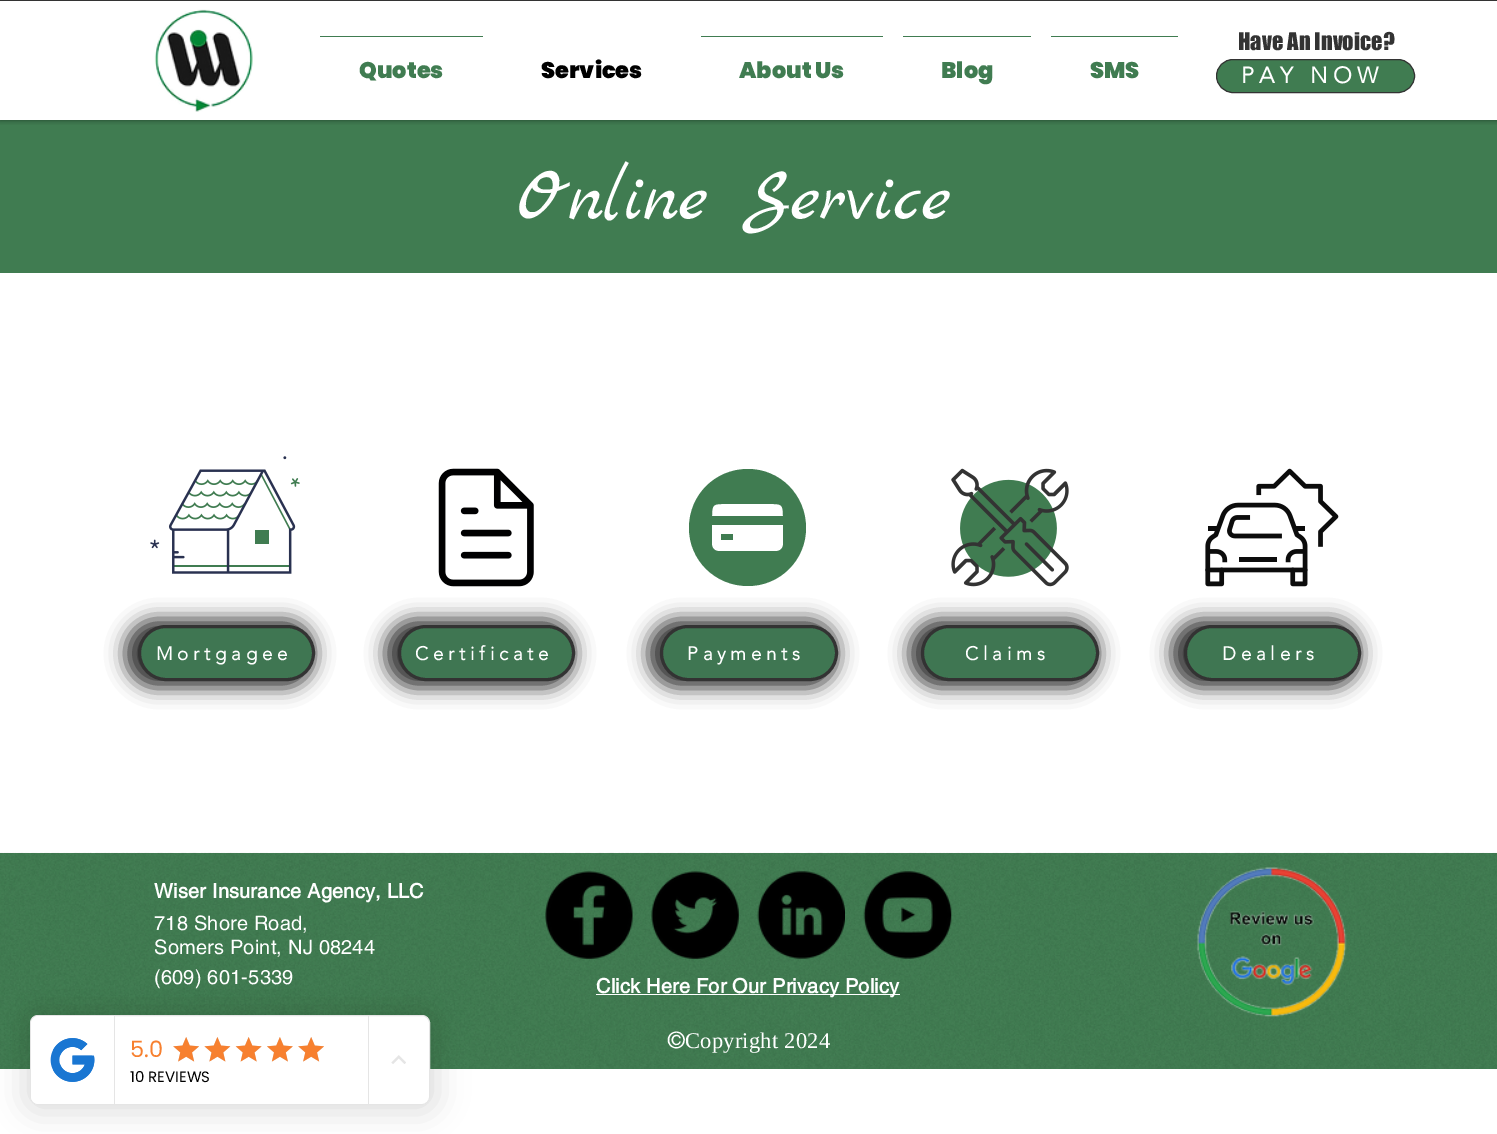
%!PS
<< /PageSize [1497 1134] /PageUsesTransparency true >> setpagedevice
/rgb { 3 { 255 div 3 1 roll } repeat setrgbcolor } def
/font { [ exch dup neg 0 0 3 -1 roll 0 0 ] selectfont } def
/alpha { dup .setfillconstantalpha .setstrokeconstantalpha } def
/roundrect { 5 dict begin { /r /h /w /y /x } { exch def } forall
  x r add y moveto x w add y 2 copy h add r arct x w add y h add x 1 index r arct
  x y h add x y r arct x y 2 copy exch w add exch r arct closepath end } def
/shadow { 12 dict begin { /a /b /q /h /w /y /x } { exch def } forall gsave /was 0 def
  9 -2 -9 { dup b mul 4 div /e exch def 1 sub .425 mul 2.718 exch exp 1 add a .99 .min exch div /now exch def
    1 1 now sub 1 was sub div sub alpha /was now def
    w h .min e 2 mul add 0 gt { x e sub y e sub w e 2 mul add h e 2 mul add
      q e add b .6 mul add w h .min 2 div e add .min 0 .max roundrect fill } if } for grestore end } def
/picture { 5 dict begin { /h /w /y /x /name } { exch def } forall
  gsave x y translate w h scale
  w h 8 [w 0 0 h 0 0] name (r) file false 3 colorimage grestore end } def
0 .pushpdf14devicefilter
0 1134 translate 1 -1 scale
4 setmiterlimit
255 255 255 rgb
0 0 1497 1134 rectfill
64 124 81 rgb
0 120 1497 153 rectfill
gsave
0 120 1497 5 rectclip
0 0 0 rgb
0 0 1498 120 0 3 0.5 shadow
grestore
51 51 51 rgb
0 0 1497 1 rectfill
(img/1.rgb) 154 9 99 103 picture
[
  [320 36 163 1 64 124 81]
  [701 36 182 1 64 124 81]
  [903 36 128 1 64 124 81]
  [1051 36 127 1 64 124 81]
] { aload pop rgb rectfill } forall
1216.5 59.5 198 33 16.5 roundrect gsave fill grestore
51 51 51 rgb
stroke
(img/2.rgb) 150 456 150 118 picture
(img/3.rgb) 438 468 96 119 picture
64 124 81 rgb
721 534 12 6 rectfill
748 469 moveto 715 469 689 495 689 528 curveto 689 560 715 586 748 586 curveto 780 586 806 560 806 528 curveto 806 495 780 469 748 469 curveto closepath 783 545 moveto 783 548 780 551 777 551 curveto 718 551 lineto 715 551 712 548 712 545 curveto 712 525 lineto 783 525 lineto closepath 783 516 moveto 712 516 lineto 712 503 714 504 728 504 curveto 767 504 lineto 781 504 783 503 783 516 curveto closepath eofill
(img/4.rgb) 951 468 118 119 picture
(img/5.rgb) 1205 468 134 119 picture
51 51 51 rgb
125 619 190 69 34.5 9.5 1 shadow
63 118 82 rgb
139.5 626.5 174 53 26.5 roundrect gsave fill grestore
51 51 51 rgb
3 setlinewidth
stroke
385 619 190 69 34.5 9.5 1 shadow
63 118 82 rgb
399.5 626.5 174 53 26.5 roundrect gsave fill grestore
51 51 51 rgb
stroke
648 619 190 69 34.5 9.5 1 shadow
63 118 82 rgb
661.5 626.5 175 53 26.5 roundrect gsave fill grestore
51 51 51 rgb
stroke
909 619 190 69 34.5 9.5 1 shadow
63 118 82 rgb
922.5 626.5 175 53 26.5 roundrect gsave fill grestore
51 51 51 rgb
stroke
1171 619 190 69 34.5 9.5 1 shadow
63 118 82 rgb
1185.5 626.5 174 53 26.5 roundrect gsave fill grestore
51 51 51 rgb
stroke
64 124 81 rgb
0 853 1497 216 rectfill
(img/6.rgb) 0 852 1497 217 picture
(img/7.rgb) 545 871 88 88 picture
(img/8.rgb) 651 871 88 88 picture
(img/9.rgb) 757 871 88 88 picture
(img/10.rgb) 863 871 89 88 picture
(img/11.rgb) 1197 867 150 150 picture
255 255 255 rgb
596 994 304 1 rectfill
0 0 0 rgb
23 1008 415 105 15 15 0.12 shadow
255 255 255 rgb
30.5 1015.5 399 89 7.5 roundrect gsave fill grestore
229 229 229 rgb
1 setlinewidth
stroke
255 255 255 rgb
39 1016 moveto 115 1016 lineto 115 1104 lineto 39 1104 lineto 34.5 1104 31 1100.5 31 1096 curveto 31 1024 lineto 31 1019.5 34.5 1016 39 1016 curveto closepath fill
229 229 229 rgb
114 1016 1 88 rectfill
(img/12.rgb) 50 1038 45 44 picture
368 1016 1 88 rectfill
(img/13.rgb) 173 1037 26 25 picture
(img/14.rgb) 173 1037 26 25 picture
(img/15.rgb) 204 1037 26 25 picture
(img/16.rgb) 204 1037 27 25 picture
(img/18.rgb) 236 1037 26 25 picture
(img/17.rgb) 235 1037 27 25 picture
(img/19.rgb) 267 1037 26 25 picture
(img/20.rgb) 267 1037 26 25 picture
(img/13.rgb) 298 1037 26 25 picture
(img/14.rgb) 298 1037 26 25 picture
(img/21.rgb) 391 1055 15 9 picture
/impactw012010-Regular 22.5 font
51 51 51 rgb
1238 50 moveto (Have An Invoice?) show
/Poppins-Black 22.5 font
64 124 81 rgb
359 78 moveto (Quotes) show
0 0 0 rgb
541 78 moveto (Services) show
64 124 81 rgb
[
  [(About Us) 739 78]
  [(Blog) 941 78]
  [(SMS) 1090 78]
] { aload pop moveto show } forall
/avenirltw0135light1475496-Bold 22.5 font
255 255 255 rgb
1241 83 moveto 5.5 0 (PAY NOW) ashow
/MarckScript-Regular 75 font
517 219 moveto (Online Service) show
/avenirltw0135light1475496-Bold 18.75 font
156 660 moveto 4.75 0 (Mortgagee) ashow
415 660 moveto 4.75 0 (Certificate) ashow
687 660 moveto 4.75 0 (Payments) ashow
965 660 moveto 4.75 0 (Claims) ashow
1222 660 moveto 4.75 0 (Dealers) ashow
/helvetica-Bold 20 font
154 898 moveto 0.2 0 (Wiser Insurance Agency, LLC) ashow
/helvetica-Regular 20 font
154 930 moveto 0.2 0 (718 Shore Road,) ashow
154 954 moveto 0.2 0 (Somers Point, NJ 08244) ashow
154 984 moveto 0.2 0 (\(609\) 601-5339) ashow
/helvetica-Bold 20 font
596 993 moveto 0.2 0 (Click Here For Our Privacy Policy) ashow
/helvetica-Regular 22.5 font
668 1048 moveto 0.25 0 (©) ashow
/LiberationSerif-Regular 22.5 font
685 1048 moveto 0.25 0 (Copyright 2024) ashow
/Poppins-Regular 22.5 font
247 128 47 rgb
130 1057 moveto (5.0) show
/Poppins-Regular 15 font
0 0 0 rgb
130 1082 moveto (10 REVIEWS) show
.poppdf14devicefilter showpage
